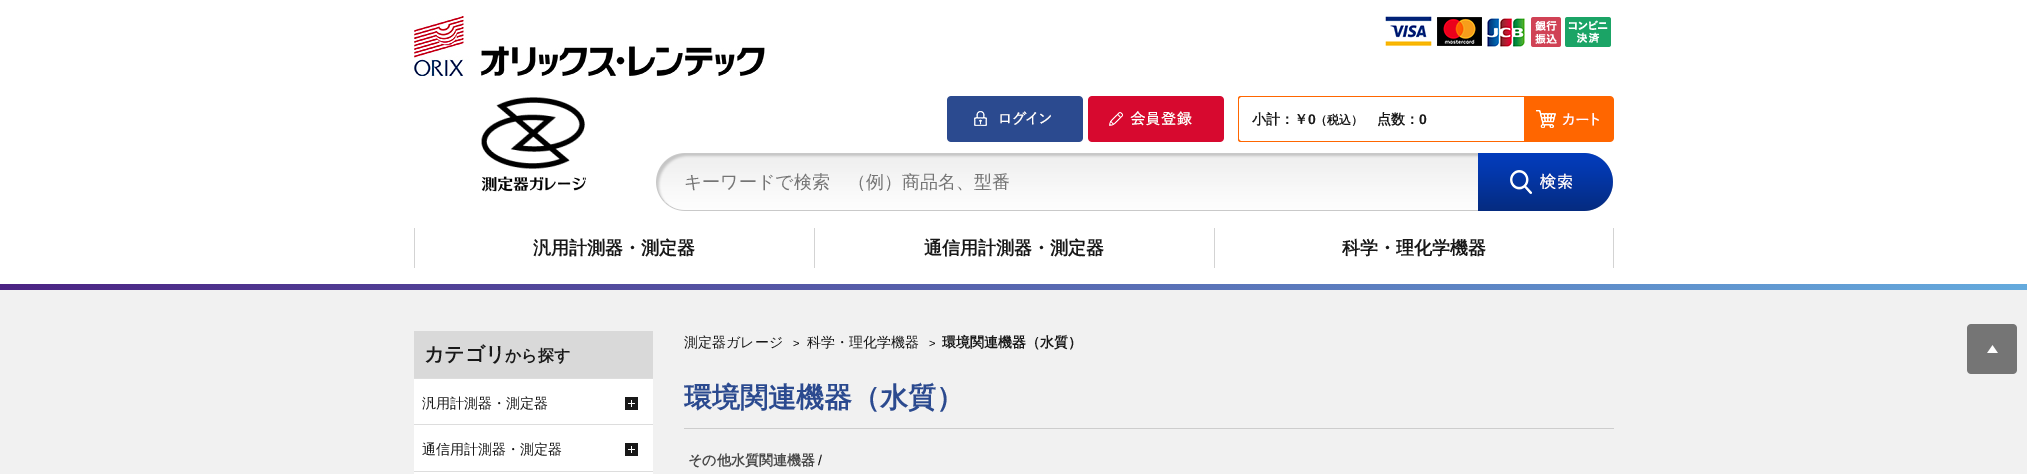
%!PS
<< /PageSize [2027 474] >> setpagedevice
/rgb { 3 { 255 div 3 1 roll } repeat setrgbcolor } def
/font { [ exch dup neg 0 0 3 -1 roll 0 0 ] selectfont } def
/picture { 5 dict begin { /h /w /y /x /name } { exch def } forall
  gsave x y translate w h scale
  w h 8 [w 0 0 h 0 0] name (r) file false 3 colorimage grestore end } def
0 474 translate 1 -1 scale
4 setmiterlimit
241 241 241 rgb
0 0 2027 474 rectfill
255 255 255 rgb
0 0 2027 284 rectfill
(img/1.rgb) 414 16 351 60 picture
(img/2.rgb) 1385 16 226 31 picture
(img/3.rgb) 481 97 105 95 picture
(img/4.rgb) 947 96 136 46 picture
(img/5.rgb) 1088 96 136 46 picture
255 102 0 rgb
1241 96 moveto 1524 96 lineto 1524 142 lineto 1241 142 lineto 1239 142 1238 141 1238 139 curveto 1238 99 lineto 1238 97 1239 96 1241 96 curveto closepath 1241 97 moveto 1524 97 lineto 1524 141 lineto 1241 141 lineto 1240 141 1239 140 1239 139 curveto 1239 99 lineto 1239 98 1240 97 1241 97 curveto closepath eofill
(img/6.rgb) 1524 96 90 46 picture
(img/7.rgb) 656 153 822 58 picture
(img/8.rgb) 1478 153 135 58 picture
(img/9.rgb) 0 284 2027 6 picture
[
  [414 228 1 40 211 211 211]
  [814 228 1 40 211 211 211]
  [1613 228 1 40 211 211 211]
  [1214 228 1 40 211 211 211]
  [414 331 239 47 217 217 217]
  [414 379 239 95 255 255 255]
  [414 378 239 1 221 221 221]
] { aload pop rgb rectfill } forall
(img/10.rgb) 625 397 13 13 picture
414 424 239 1 rectfill
(img/10.rgb) 625 443 13 13 picture
414 471 239 1 rectfill
205 205 205 rgb
684 428 930 1 rectfill
(img/11.rgb) 1967 324 50 50 picture
/WenQuanYiZenHei-Bold 14 font
24 24 24 rgb
1252 124 moveto (小計：￥) show
/LiberationSans-Bold 14 font
1308 124 moveto (0) show
/WenQuanYiZenHei-Bold 12 font
1315 124 moveto (（税込）) show
/WenQuanYiZenHei-Bold 14 font
1377 124 moveto (点数：) show
/LiberationSans-Bold 14 font
1419 124 moveto (0) show
/WenQuanYiZenHei-Medium 18 font
117 117 117 rgb
684 188 moveto (キーワードで検索　（例）商品名、型番) show
/WenQuanYiZenHei-Bold 18 font
24 24 24 rgb
[
  [(汎用計測器・測定器) 533 254]
  [(通信用計測器・測定器) 924 254]
  [(科学・理化学機器) 1342 254]
] { aload pop moveto show } forall
/WenQuanYiZenHei-Bold 20 font
424 361 moveto (カテゴリ) show
/WenQuanYiZenHei-Bold 16 font
505 361 moveto (から探す) show
/WenQuanYiZenHei-Medium 14 font
[
  [(汎用計測器・測定器) 422 408]
  [(通信用計測器・測定器) 422 454]
  [(測定器ガレージ) 684 347]
] { aload pop moveto show } forall
/LiberationSans-Regular 11 font
0 0 0 rgb
793 347 moveto (>) show
/WenQuanYiZenHei-Medium 14 font
24 24 24 rgb
807 347 moveto (科学・理化学機器) show
/LiberationSans-Regular 11 font
0 0 0 rgb
929 347 moveto (>) show
/WenQuanYiZenHei-Bold 14 font
24 24 24 rgb
942 347 moveto (環境関連機器（水質）) show
/WenQuanYiZenHei-Bold 28 font
43 74 143 rgb
684 407 moveto (環境関連機器（水質）) show
/WenQuanYiZenHei-Bold 14 font
73 73 73 rgb
688 465 moveto (その他水質関連機器) show
/LiberationSans-Regular 14 font
0 0 0 rgb
818 465 moveto (/) show
showpage
